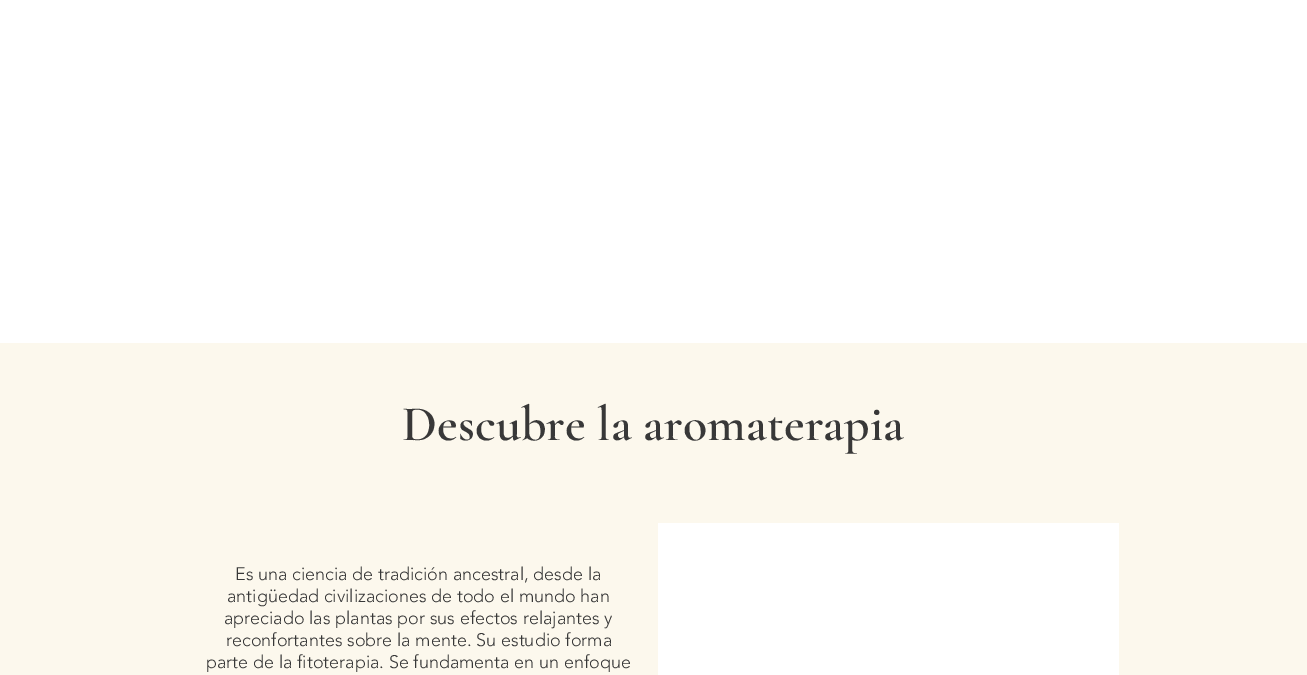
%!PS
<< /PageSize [1307 675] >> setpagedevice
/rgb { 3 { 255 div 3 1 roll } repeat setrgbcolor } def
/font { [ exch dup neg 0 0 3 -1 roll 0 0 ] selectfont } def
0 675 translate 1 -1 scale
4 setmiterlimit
255 255 255 rgb
0 0 1307 675 rectfill
252 248 237 rgb
0 343 1307 332 rectfill
255 255 255 rgb
658 523 461 152 rectfill
/CormorantGaramond-SemiBold 50 font
56 56 56 rgb
402 440 moveto (Descubre la aromaterapia) show
/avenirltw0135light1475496-Light 18 font
[
  [(Es una ciencia de tradición ancestral, desde la) 235 580]
  [(antigüedad civilizaciones de todo el mundo han) 227 602]
  [(apreciado las plantas por sus efectos relajantes y) 224 624]
  [(reconfortantes sobre la mente. Su estudio forma) 226 646]
  [(parte de la fitoterapia. Se fundamenta en un enfoque) 206 668]
] { aload pop moveto show } forall
showpage
